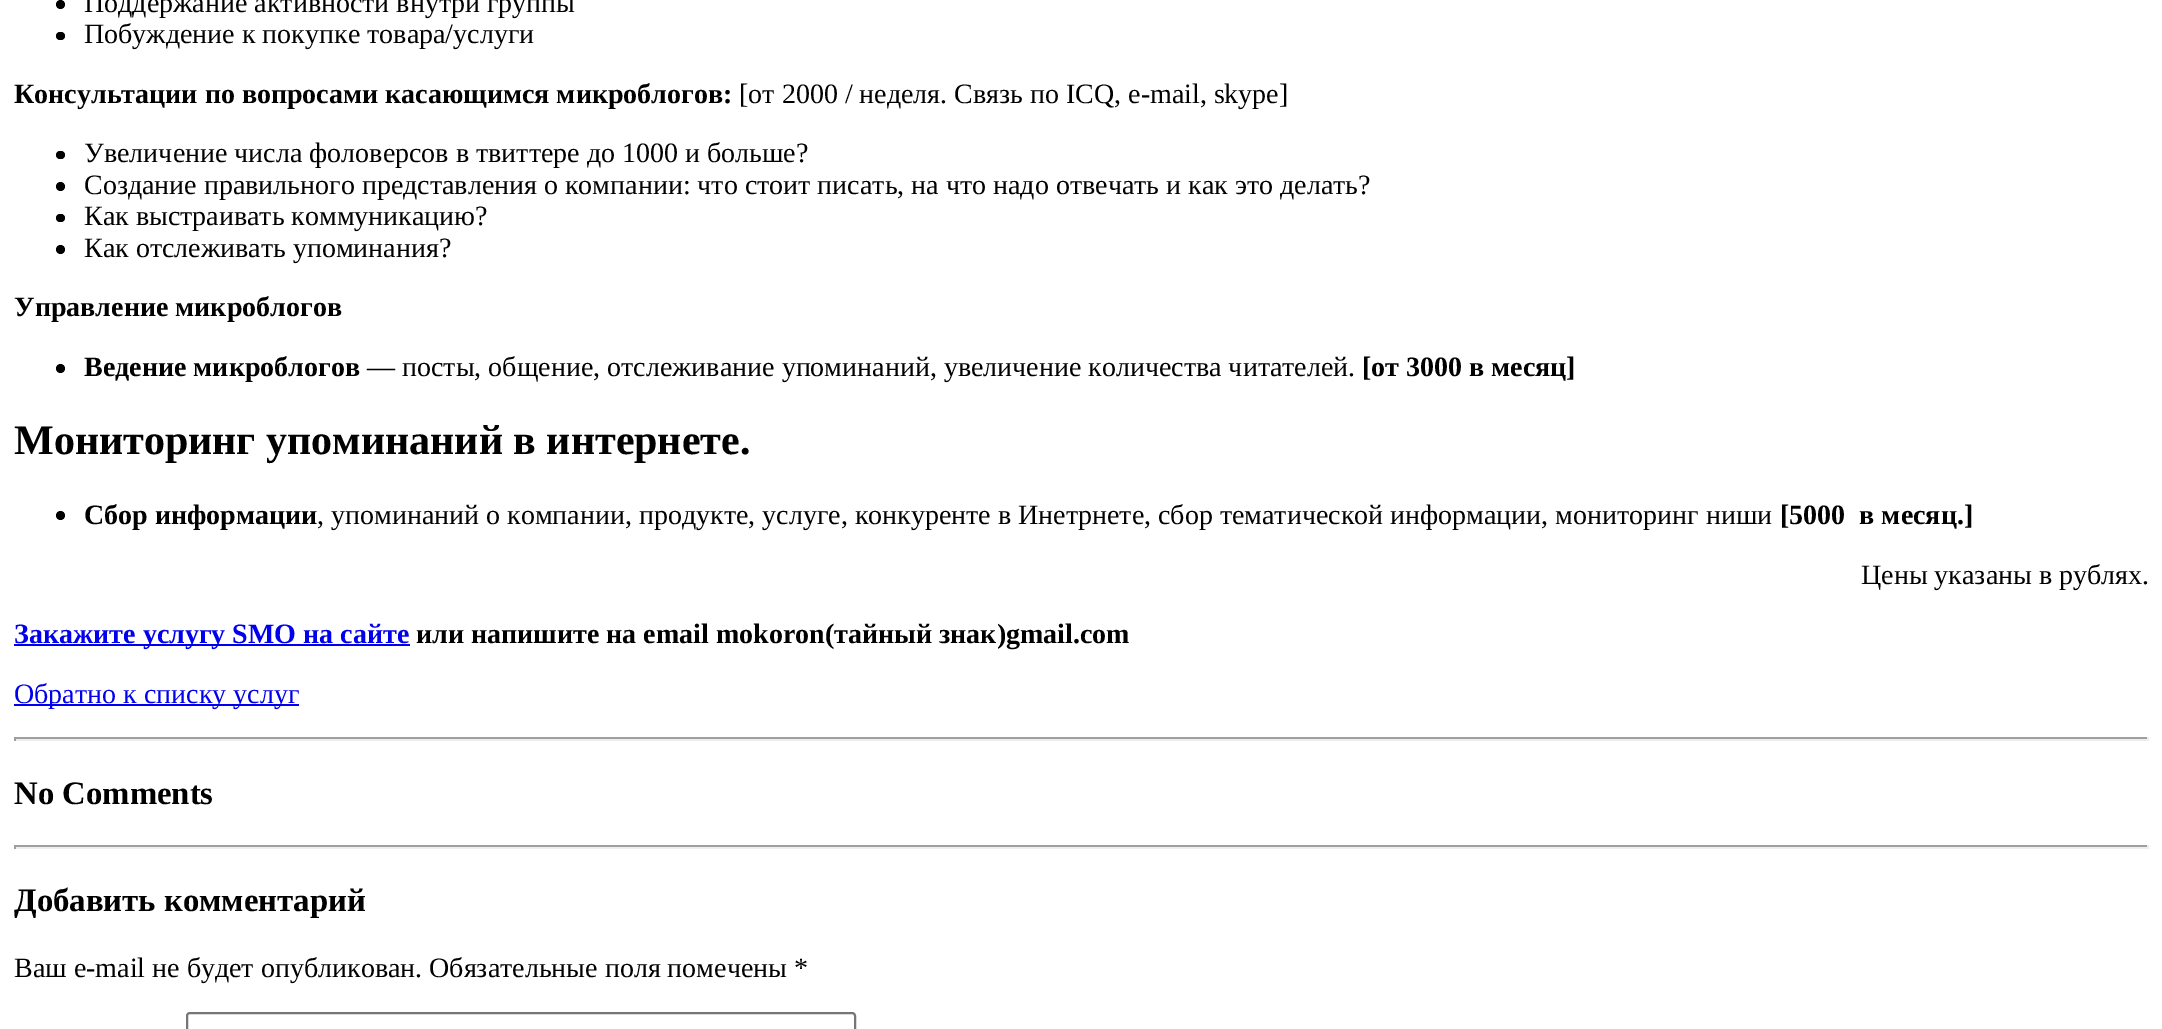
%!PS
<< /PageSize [2162 1029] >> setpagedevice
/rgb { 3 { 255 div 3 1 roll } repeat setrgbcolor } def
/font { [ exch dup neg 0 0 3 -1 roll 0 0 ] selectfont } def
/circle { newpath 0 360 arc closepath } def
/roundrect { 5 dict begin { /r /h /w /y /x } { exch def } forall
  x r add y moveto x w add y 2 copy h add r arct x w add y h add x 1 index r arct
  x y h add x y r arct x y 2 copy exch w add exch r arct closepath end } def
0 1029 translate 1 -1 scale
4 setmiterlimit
255 255 255 rgb
0 0 2162 1029 rectfill
0 0 0 rgb
60.5 4.5 4.5 circle fill
56 32 9 8 4 roundrect fill
56 151 9 8 4 roundrect fill
60.5 186.5 4.5 circle fill
56 214 9 8 4 roundrect fill
60.5 249.5 4.5 circle fill
60.5 368.5 4.5 circle fill
60.5 515.5 4.5 circle fill
[
  [14 644 396 2 0 0 238]
  [14 704 285 2 0 0 238]
  [14 737 2135 2 159 159 159]
  [2147 737 2 4 238 238 238]
  [14 739 2135 2 238 238 238]
  [14 737 2 4 159 159 159]
  [14 845 2135 2 159 159 159]
  [2147 845 2 4 238 238 238]
  [14 847 2135 2 238 238 238]
  [14 845 2 4 159 159 159]
] { aload pop rgb rectfill } forall
118 118 118 rgb
2 setlinewidth
187 1013 668 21 3 roundrect stroke
/LiberationSerif-Regular 28 font
0 0 0 rgb
84 12 moveto (Поддержание активности внутри группы) show
84 43 moveto (Побуждение к покупке товара/услуги) show
/LiberationSerif-Bold 28 font
14 103 moveto (Консультации по вопросами касающимся микроблогов:) show
/LiberationSerif-Regular 28 font
[
  [([от 2000 / неделя. Связь по ICQ, e-mail, skype]) 739 103]
  [(Увеличение числа фоловерсов в твиттере до 1000 и больше?) 84 162]
  [(Создание правильного представления о компании: что стоит писать, на что надо отвечать и как это делать?) 84 194]
  [(Как выстраивать коммуникацию?) 84 225]
  [(Как отслеживать упоминания?) 84 257]
] { aload pop moveto show } forall
/LiberationSerif-Bold 28 font
14 316 moveto (Управление микроблогов) show
84 376 moveto (Ведение микроблогов) show
/LiberationSerif-Regular 28 font
367 376 moveto (— посты, общение, отслеживание упоминаний, увеличение количества читателей.) show
/LiberationSerif-Bold 28 font
1362 376 moveto ([от 3000 в месяц]) show
/LiberationSerif-Bold 42 font
14 454 moveto (Мониторинг упоминаний в интернете.) show
/LiberationSerif-Bold 28 font
84 524 moveto (Сбор информации) show
/LiberationSerif-Regular 28 font
317 524 moveto (, упоминаний о компании, продукте, услуге, конкуренте в Инетрнете, сбор тематической информации, мониторинг ниши) show
/LiberationSerif-Bold 28 font
1780 524 moveto ([5000  в месяц.]) show
/LiberationSerif-Regular 28 font
1861 584 moveto (Цены указаны в рублях.) show
/LiberationSerif-Bold 28 font
0 0 238 rgb
14 643 moveto (Закажите услугу SMO на сайте) show
0 0 0 rgb
416 643 moveto (или напишите на email mokoron\(тайный знак\)gmail.com) show
/LiberationSerif-Regular 28 font
0 0 238 rgb
14 703 moveto (Обратно к списку услуг) show
/LiberationSerif-Bold 32.75 font
0 0 0 rgb
14 804 moveto (No Comments) show
14 911 moveto (Добавить комментарий) show
/LiberationSerif-Regular 28 font
14 977 moveto (Ваш e-mail не будет опубликован. Обязательные поля помечены *) show
showpage
